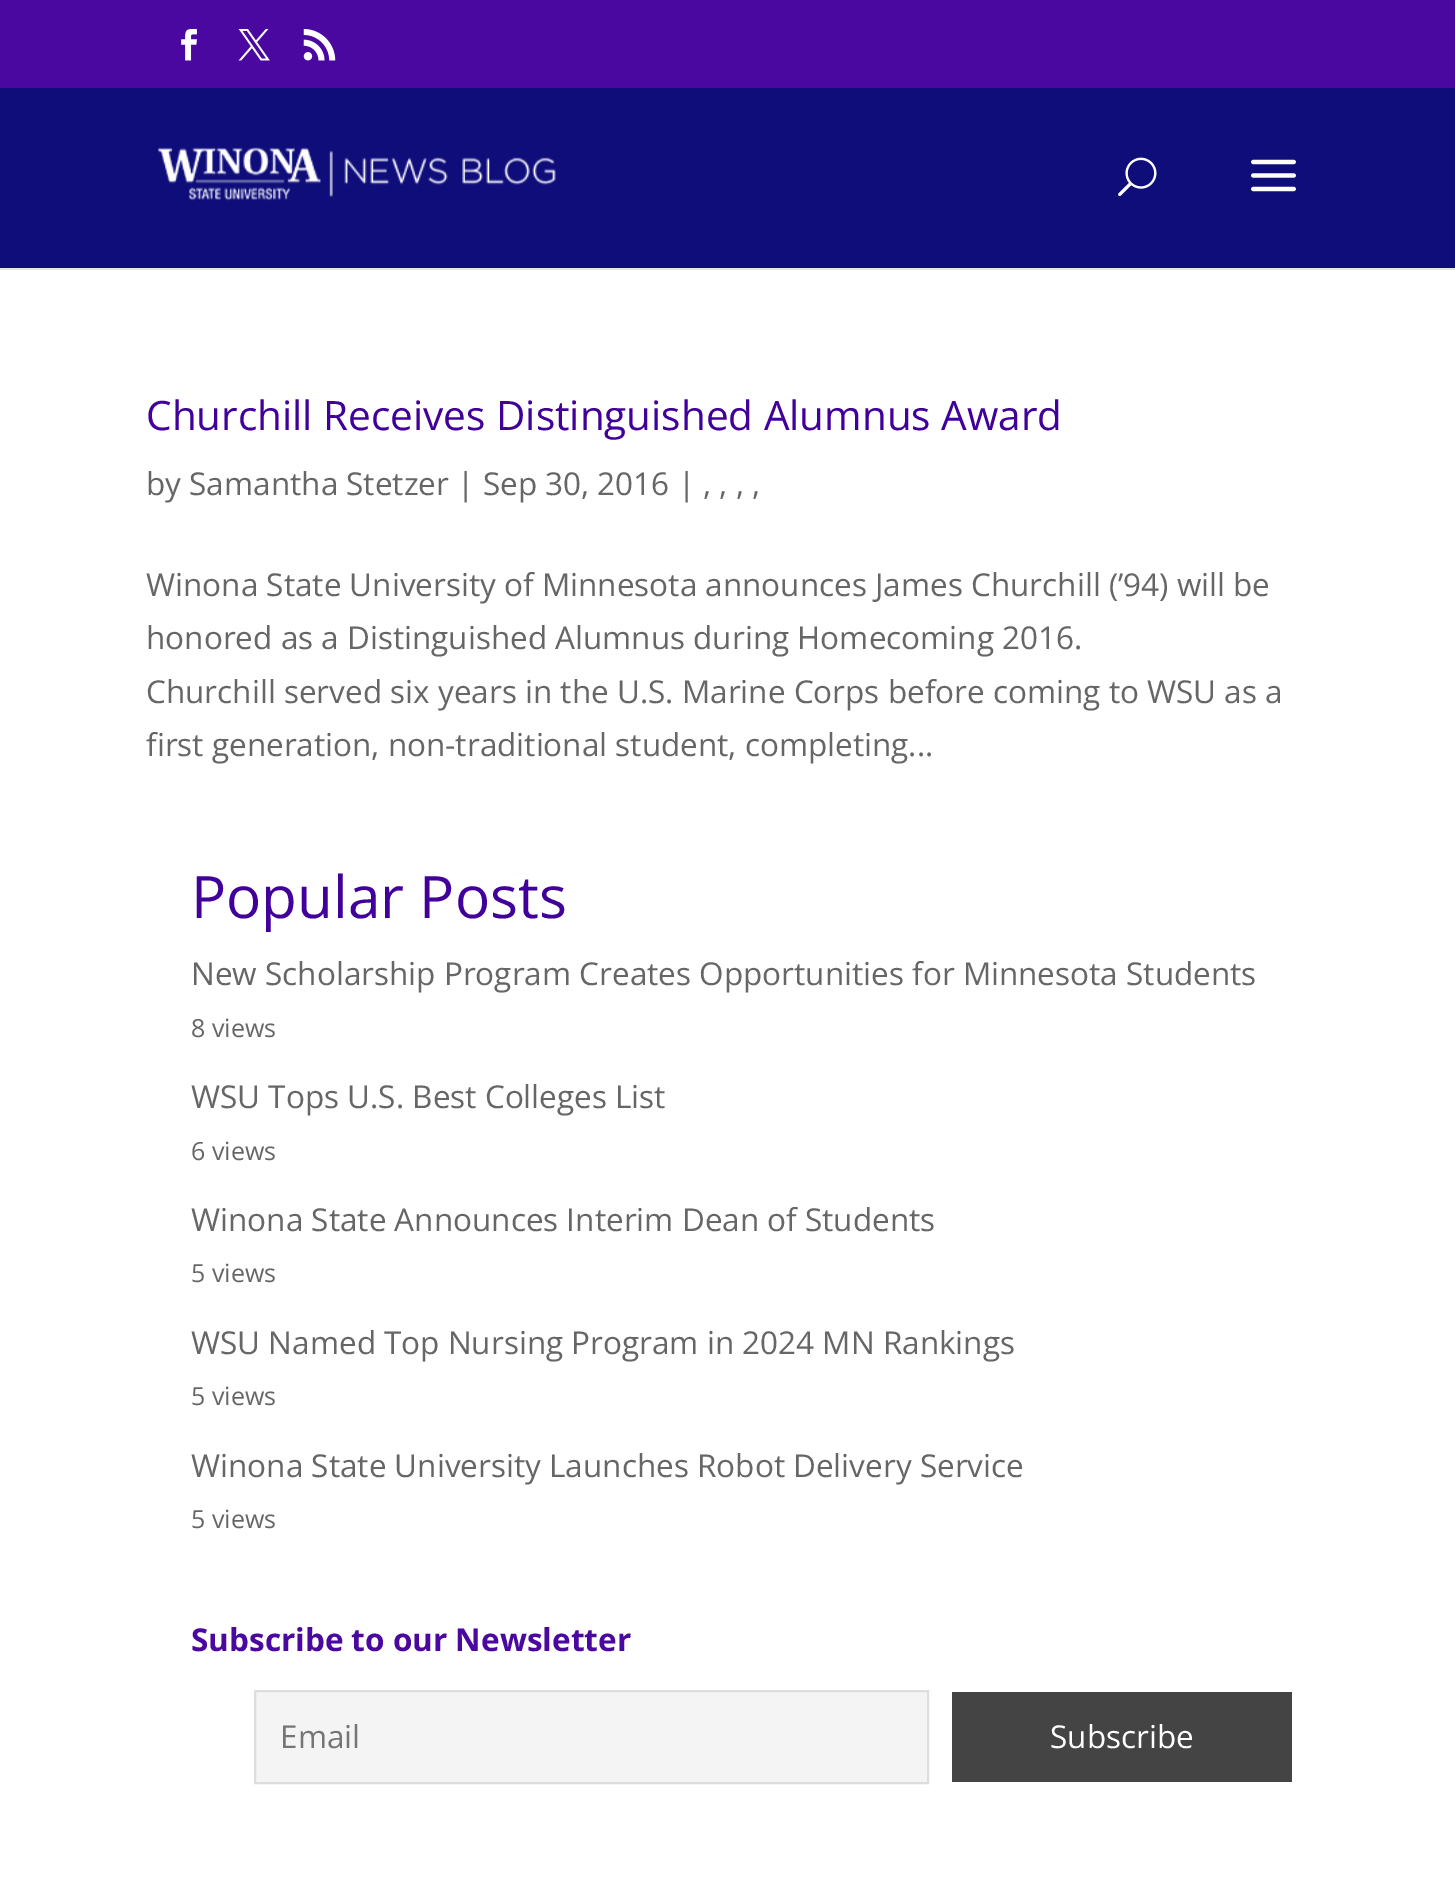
%!PS
<< /PageSize [1455 1898] >> setpagedevice
/rgb { 3 { 255 div 3 1 roll } repeat setrgbcolor } def
/font { [ exch dup neg 0 0 3 -1 roll 0 0 ] selectfont } def
/picture { 5 dict begin { /h /w /y /x /name } { exch def } forall
  gsave x y translate w h scale
  w h 8 [w 0 0 h 0 0] name (r) file false 3 colorimage grestore end } def
0 1898 translate 1 -1 scale
4 setmiterlimit
255 255 255 rgb
0 0 1455 1898 rectfill
75 8 161 rgb
0 0 1455 88 rectfill
(img/1.rgb) 181 29 16 32 picture
(img/2.rgb) 238 29 32 32 picture
(img/3.rgb) 303 29 33 32 picture
230 230 230 rgb
0 268 moveto 0 270 lineto 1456 270 lineto 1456 90 lineto 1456 268 lineto closepath fill
15 13 122 rgb
0 88 1455 180 rectfill
(img/4.rgb) 158 147 398 54 picture
(img/5.rgb) 1118 157 39 39 picture
(img/6.rgb) 1251 159 45 33 picture
244 244 244 rgb
255 1691 moveto 928 1691 lineto 928 1783 lineto 255 1783 lineto closepath gsave fill grestore
221 221 221 rgb
2 setlinewidth
stroke
68 68 68 rgb
952 1692 340 90 rectfill
/OpenSans-Regular 40.5 font
65 0 153 rgb
146 430 moveto (Churchill Receives Distinguished Alumnus Award) show
/OpenSans-Regular 31.5 font
102 102 102 rgb
[
  [(by Samantha Stetzer | Sep 30, 2016 | , , , ,) 146 495]
  [(Winona State University of Minnesota announces James Churchill \(’94\) will be) 146 596]
  [(honored as a Distinguished Alumnus during Homecoming 2016.) 146 649]
  [(Churchill served six years in the U.S. Marine Corps before coming to WSU as a) 146 703]
  [(first generation, non-traditional student, completing...) 146 756]
] { aload pop moveto show } forall
/OpenSans-Regular 58.5 font
65 0 153 rgb
191 918 moveto (Popular Posts) show
/OpenSans-Regular 31.5 font
102 102 102 rgb
191 985 moveto (New Scholarship Program Creates Opportunities for Minnesota Students) show
/OpenSans-Regular 25 font
191 1037 moveto (8 views) show
/OpenSans-Regular 31.5 font
191 1108 moveto (WSU Tops U.S. Best Colleges List) show
/OpenSans-Regular 25 font
191 1160 moveto (6 views) show
/OpenSans-Regular 31.5 font
191 1231 moveto (Winona State Announces Interim Dean of Students) show
/OpenSans-Regular 25 font
191 1282 moveto (5 views) show
/OpenSans-Regular 31.5 font
191 1354 moveto (WSU Named Top Nursing Program in 2024 MN Rankings) show
/OpenSans-Regular 25 font
191 1405 moveto (5 views) show
/OpenSans-Regular 31.5 font
191 1477 moveto (Winona State University Launches Robot Delivery Service) show
/OpenSans-Regular 25 font
191 1528 moveto (5 views) show
/OpenSans-Bold 31.5 font
75 8 161 rgb
191 1651 moveto (Subscribe to our Newsletter) show
/OpenSans-Regular 31.5 font
117 117 117 rgb
280 1748 moveto (Email) show
255 255 255 rgb
1050 1748 moveto (Subscribe) show
showpage
